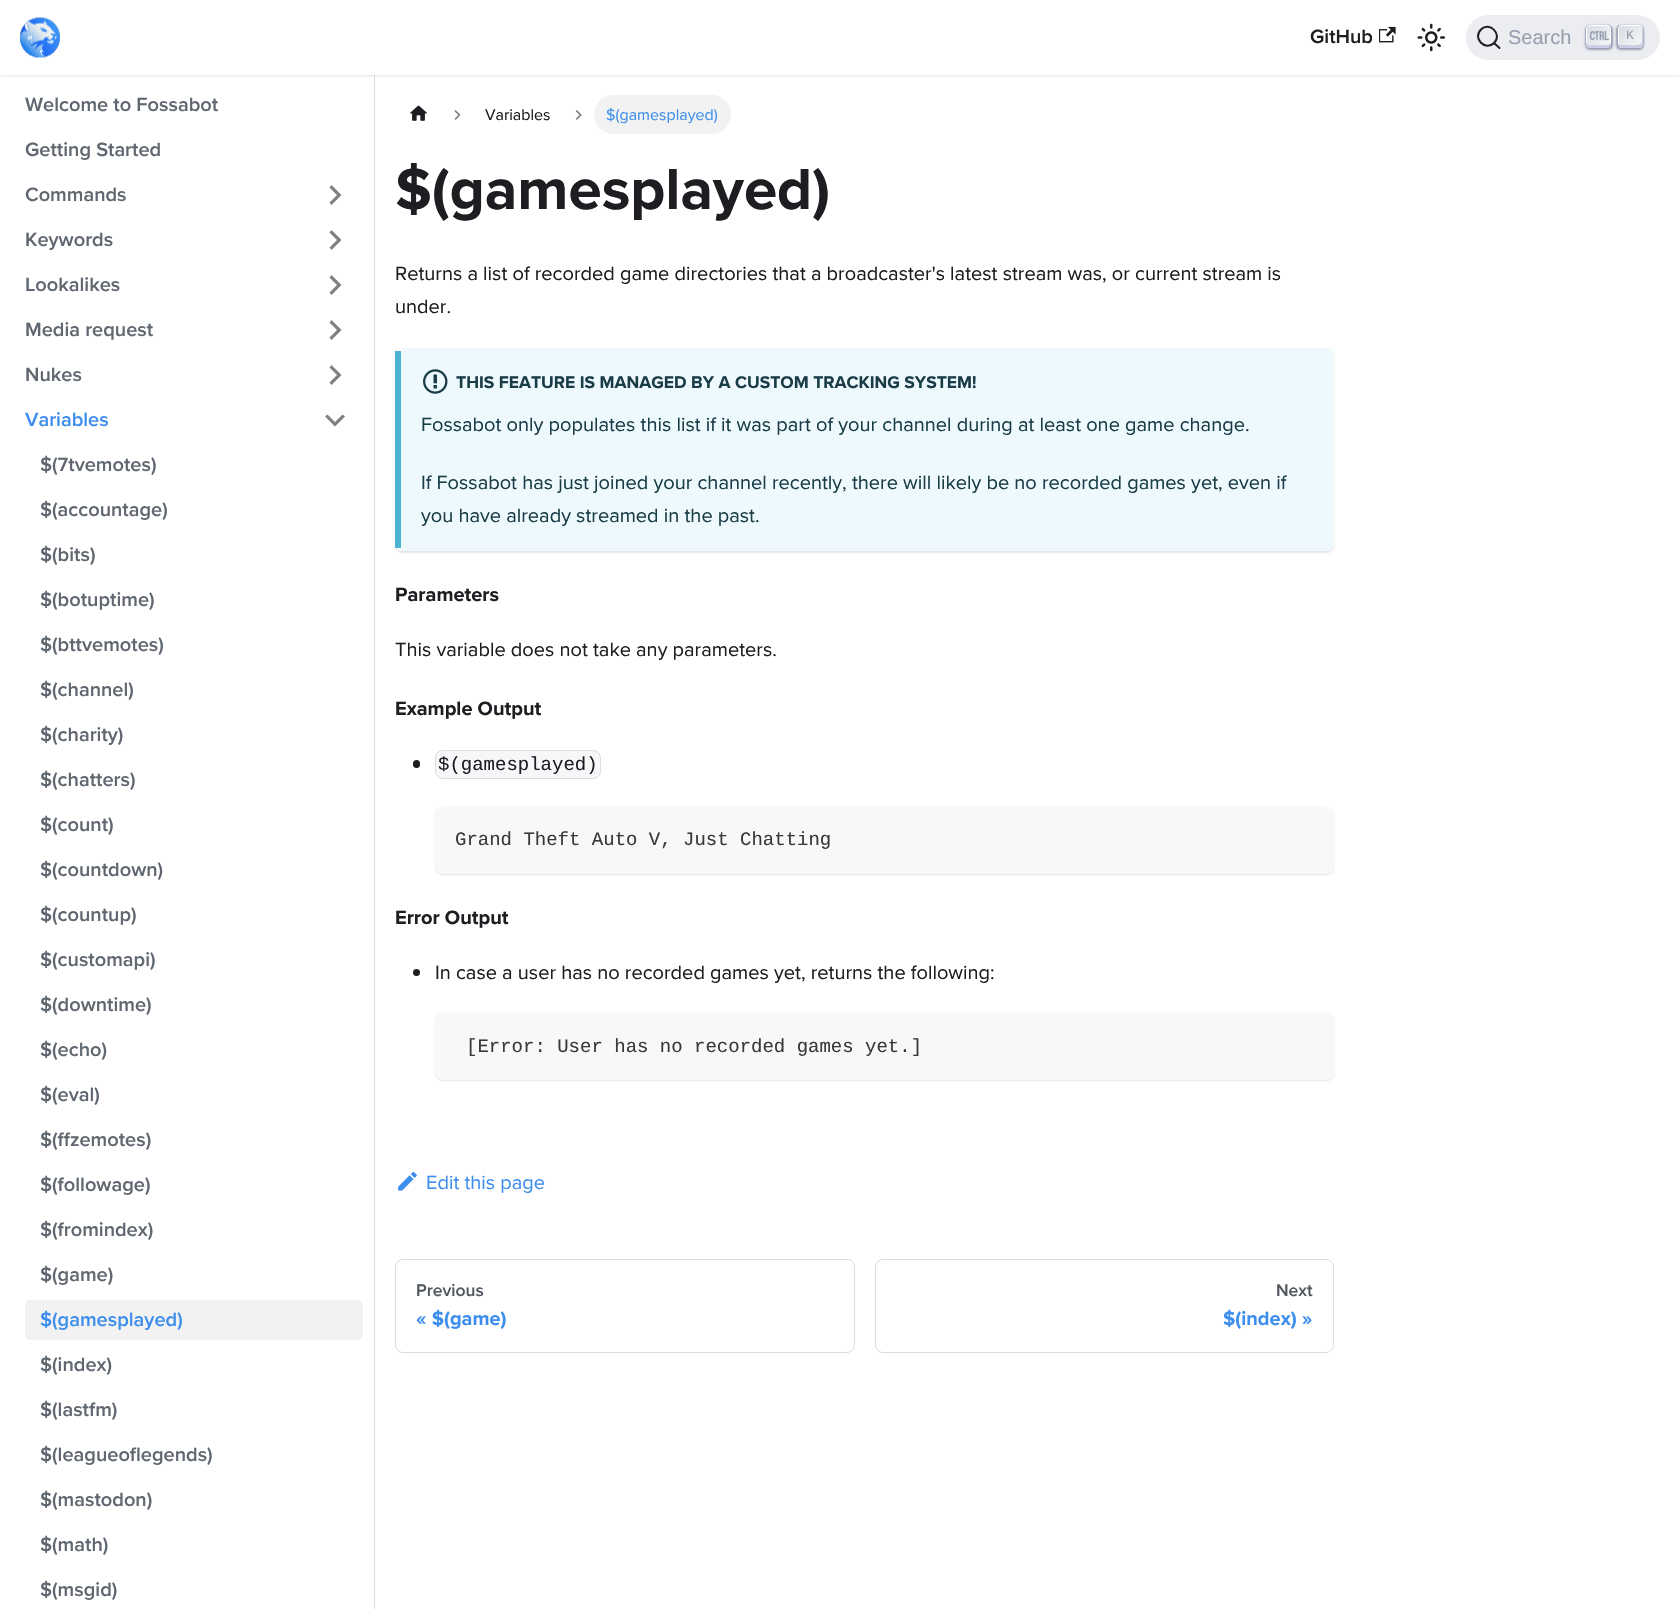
#include "include/core/SkBlurTypes.h"
#include "include/core/SkCanvas.h"
#include "include/core/SkData.h"
#include "include/core/SkFont.h"
#include "include/core/SkFontMgr.h"
#include "include/core/SkImage.h"
#include "include/core/SkMaskFilter.h"
#include "include/core/SkPaint.h"
#include "include/core/SkPathBuilder.h"
#include "include/core/SkTextBlob.h"
#include "include/effects/SkDashPathEffect.h"
#include "include/effects/SkGradientShader.h"
#include "include/utils/SkParsePath.h"

extern sk_sp<SkFontMgr> fontMgr;

void draw(SkCanvas* canvas) {
    SkPaint p;
    p.setAntiAlias(true);
    auto font = [&](const char* family, int weight, float size, bool italic = false) {
        SkFontStyle style(weight, SkFontStyle::kNormal_Width,
            italic ? SkFontStyle::kItalic_Slant : SkFontStyle::kUpright_Slant);
        SkFont result(fontMgr->matchFamilyStyle(family, style), size);
        result.setSubpixel(true);
        return result;
    };
    auto drawPhoto = [&](const char* path, float l, float t, float r, float b) {
        auto image = SkImages::DeferredFromEncodedData(SkData::MakeFromFileName(path));
        canvas->drawImageRect(image, SkRect::MakeLTRB(l, t, r, b), SkSamplingOptions());
    };
    canvas->clear(0xFFFFFFFF);
    p.setColor(0xFFDADDE1);
    canvas->drawRect(SkRect::MakeLTRB(374, 75, 375, 1609), p);
    p.setColor(0x1A000000);
    p.setMaskFilter(SkMaskFilter::MakeBlur(kNormal_SkBlurStyle, 1));
    canvas->drawRect(SkRect::MakeLTRB(0, 1, 1680, 76), p);
    p.setMaskFilter(nullptr);
    p.setColor(0xFFFFFFFF);
    canvas->drawRect(SkRect::MakeLTRB(0, 0, 1680, 75), p);
    drawPhoto("media/1.png", 20, 17, 60, 58);
    auto font1 = font("Proxima Nova", 600, 20);
    p.setColor(0xFF1C1E21);
    canvas->drawString("GitHub", 1310, 43, font1, p);
    drawPhoto("media/2.png", 1379, 26, 1396, 43);
    drawPhoto("media/3.png", 1417, 23, 1445, 52);
    p.setColor(0xFFEBEDF0);
    canvas->drawRoundRect(SkRect::MakeLTRB(1466, 15, 1660, 60), 22.5f, 22.5f, p);
    p.setStyle(SkPaint::kStroke_Style);
    p.setStrokeWidth(2);
    p.setStrokeCap(SkPaint::kRound_Cap);
    p.setStrokeJoin(SkPaint::kRound_Join);
    p.setColor(0xFF1C1E21);
    canvas->drawPath(SkPathBuilder().moveTo(1494, 43).lineTo(1499.5f, 48).lineTo(1494, 43).cubicTo(1485.5f, 51.5f, 1472, 38.5f, 1481, 29.5f).cubicTo(1489.5f, 21, 1503, 34.5f, 1494, 43).close().detach(), p);
    auto font2 = font("Liberation Sans", 400, 20);
    p.setStyle(SkPaint::kFill_Style);
    p.setColor(0xFF969FAF);
    canvas->drawString("Search", 1508, 44, font2, p);
    p.setColor(0x661E235A);
    p.setMaskFilter(SkMaskFilter::MakeBlur(kNormal_SkBlurStyle, 1));
    canvas->drawRoundRect(SkRect::MakeLTRB(1585, 25, 1613, 50), 5, 5, p);
    p.setMaskFilter(nullptr);
    {
        const SkColor colors[] = {0xFFD5DBE4, 0xFFF8F8F8};
        const float stops[] = {0, 1};
        const SkPoint ends[] = {{1587, 24}, {1611, 48}};
        p.setShader(SkGradientShader::MakeLinear(ends, colors, stops, 2, SkTileMode::kClamp));
        p.setAlpha(255);
    }
    canvas->drawRoundRect(SkRect::MakeLTRB(1586.5f, 25.5f, 1610.5f, 47.5f), 3.5f, 3.5f, p);
    p.setStyle(SkPaint::kStroke_Style);
    p.setStrokeWidth(1);
    p.setStrokeCap(SkPaint::kButt_Cap);
    p.setStrokeJoin(SkPaint::kMiter_Join);
    p.setShader(nullptr);
    p.setColor(0xFFFFFFFF);
    canvas->drawRoundRect(SkRect::MakeLTRB(1586.5f, 25.5f, 1610.5f, 47.5f), 3.5f, 3.5f, p);
    p.setStyle(SkPaint::kFill_Style);
    p.setColor(0xFFCDCDE6);
    canvas->drawPath(SkPathBuilder().moveTo(1611, 42).cubicTo(1610.5f, 44, 1609, 45, 1605, 45).lineTo(1590, 45).cubicTo(1587, 45, 1586, 42.5f, 1586, 39.5f).lineTo(1586, 44).cubicTo(1586, 46, 1588, 48, 1590, 48).lineTo(1607, 48).cubicTo(1609, 48, 1611, 46, 1611, 44).close().detach(), p);
    drawPhoto("media/4.png", 1590, 31, 1609, 41);
    p.setColor(0x661E235A);
    p.setMaskFilter(SkMaskFilter::MakeBlur(kNormal_SkBlurStyle, 1));
    canvas->drawRoundRect(SkRect::MakeLTRB(1616, 25, 1644, 50), 5, 5, p);
    p.setMaskFilter(nullptr);
    {
        const SkColor colors[] = {0xFFD5DBE4, 0xFFF8F8F8};
        const float stops[] = {0, 1};
        const SkPoint ends[] = {{1618, 24}, {1642, 48}};
        p.setShader(SkGradientShader::MakeLinear(ends, colors, stops, 2, SkTileMode::kClamp));
        p.setAlpha(255);
    }
    canvas->drawRoundRect(SkRect::MakeLTRB(1618.5f, 25.5f, 1642.5f, 47.5f), 3.5f, 3.5f, p);
    p.setStyle(SkPaint::kStroke_Style);
    p.setShader(nullptr);
    p.setColor(0xFFFFFFFF);
    canvas->drawRoundRect(SkRect::MakeLTRB(1618.5f, 25.5f, 1642.5f, 47.5f), 3.5f, 3.5f, p);
    p.setStyle(SkPaint::kFill_Style);
    p.setColor(0xFFCDCDE6);
    canvas->drawPath(SkPathBuilder().moveTo(1642, 26.5f).lineTo(1642, 34).lineTo(1642, 40.5f).lineTo(1641.5f, 43).cubicTo(1640, 46, 1631.5f, 45, 1628.5f, 45).lineTo(1623.5f, 45).cubicTo(1621, 45, 1619, 45.5f, 1618, 43).cubicTo(1618, 48, 1620.5f, 48, 1625, 48).lineTo(1630.5f, 48).cubicTo(1643.5f, 48, 1643, 49.5f, 1643, 36.5f).cubicTo(1643, 34, 1644, 28.5f, 1642, 26.5f).close().detach(), p);
    auto font3 = font("Liberation Mono", 400, 13);
    p.setColor(0xFF969FAF);
    canvas->drawString("K", 1626, 39, font3, p);
    p.setColor(0xFF606770);
    {
        const struct { const char* s; float x, y; } items[] = {
            {"Welcome to Fossabot", 25, 111},
            {"Getting Started", 25, 156},
            {"Commands", 25, 201},
        };
        for (auto [s, x, y] : items) {
            canvas->drawString(s, x, y, font1, p);
        }
    }
    p.setColor(0xFF808080);
    canvas->drawPath(SkPathBuilder().moveTo(329.5f, 187.5f).lineTo(337, 195).lineTo(329.5f, 202.5f).lineTo(331.5f, 205).lineTo(341.5f, 195).lineTo(331.5f, 185).close().detach(), p);
    p.setColor(0xFF606770);
    canvas->drawString("Keywords", 25, 246, font1, p);
    p.setColor(0xFF808080);
    canvas->drawPath(SkPathBuilder().moveTo(329.5f, 232.5f).lineTo(337, 240).lineTo(329.5f, 247.5f).lineTo(331.5f, 250).lineTo(341.5f, 240).lineTo(331.5f, 230).close().detach(), p);
    p.setColor(0xFF606770);
    canvas->drawString("Lookalikes", 25, 291, font1, p);
    p.setColor(0xFF808080);
    canvas->drawPath(SkPathBuilder().moveTo(329.5f, 277.5f).lineTo(337, 285).lineTo(329.5f, 292.5f).lineTo(331.5f, 295).lineTo(341.5f, 285).lineTo(331.5f, 275).close().detach(), p);
    p.setColor(0xFF606770);
    canvas->drawString("Media request", 25, 336, font1, p);
    p.setColor(0xFF808080);
    canvas->drawPath(SkPathBuilder().moveTo(329.5f, 322.5f).lineTo(337, 330).lineTo(329.5f, 337.5f).lineTo(331.5f, 340).lineTo(341.5f, 330).lineTo(331.5f, 320).close().detach(), p);
    p.setColor(0xFF606770);
    canvas->drawString("Nukes", 25, 381, font1, p);
    p.setColor(0xFF808080);
    canvas->drawPath(SkPathBuilder().moveTo(329.5f, 367.5f).lineTo(337, 375).lineTo(329.5f, 382.5f).lineTo(331.5f, 385).lineTo(341.5f, 375).lineTo(331.5f, 365).close().detach(), p);
    p.setColor(0xFF3E8EED);
    canvas->drawString("Variables", 25, 426, font1, p);
    p.setColor(0xFF808080);
    canvas->drawPath(SkPathBuilder().moveTo(342.5f, 414.5f).lineTo(335, 422).lineTo(327.5f, 414.5f).lineTo(325, 416.5f).lineTo(335, 426.5f).lineTo(345, 416.5f).close().detach(), p);
    p.setColor(0xFF606770);
    {
        const struct { const char* s; float x, y; } items[] = {
            {"$(7tvemotes)", 40, 471},
            {"$(accountage)", 40, 516},
            {"$(bits)", 40, 561},
            {"$(botuptime)", 40, 606},
            {"$(bttvemotes)", 40, 651},
            {"$(channel)", 40, 696},
            {"$(charity)", 40, 741},
            {"$(chatters)", 40, 786},
            {"$(count)", 40, 831},
            {"$(countdown)", 40, 876},
            {"$(countup)", 40, 921},
            {"$(customapi)", 40, 966},
            {"$(downtime)", 40, 1011},
            {"$(echo)", 40, 1056},
            {"$(eval)", 40, 1101},
            {"$(ffzemotes)", 40, 1146},
            {"$(followage)", 40, 1191},
            {"$(fromindex)", 40, 1236},
            {"$(game)", 40, 1281},
        };
        for (auto [s, x, y] : items) {
            canvas->drawString(s, x, y, font1, p);
        }
    }
    p.setColor(0xFFF2F2F2);
    canvas->drawRoundRect(SkRect::MakeLTRB(25, 1300, 363, 1340), 5, 5, p);
    p.setColor(0xFF3E8EED);
    canvas->drawString("$(gamesplayed)", 40, 1326, font1, p);
    p.setColor(0xFF606770);
    {
        const struct { const char* s; float x, y; } items[] = {
            {"$(index)", 40, 1371},
            {"$(lastfm)", 40, 1416},
            {"$(leagueoflegends)", 40, 1461},
            {"$(mastodon)", 40, 1506},
            {"$(math)", 40, 1551},
            {"$(msgid)", 40, 1596},
        };
        for (auto [s, x, y] : items) {
            canvas->drawString(s, x, y, font1, p);
        }
    }
    drawPhoto("media/5.png", 410, 105, 427, 121);
    drawPhoto("media/6.png", 454, 110, 461, 120);
    auto font4 = font("Proxima Nova", 400, 16);
    p.setColor(0xFF1C1E21);
    canvas->drawString("Variables", 485, 120, font4, p);
    drawPhoto("media/7.png", 575, 110, 582, 120);
    p.setColor(0xFFF2F2F2);
    canvas->drawRoundRect(SkRect::MakeLTRB(594, 95, 731, 134), 19.5f, 19.5f, p);
    p.setColor(0xFF3E8EED);
    canvas->drawString("$(gamesplayed)", 606, 120, font4, p);
    auto font5 = font("Proxima Nova", 700, 60);
    p.setColor(0xFF1C1E21);
    canvas->drawString("$(gamesplayed)", 395, 209, font5, p);
    auto font6 = font("Proxima Nova", 400, 20);
    canvas->drawString("Returns a list of recorded game directories that a broadcaster's latest stream was, or current stream is", 395, 280, font6, p);
    canvas->drawString("under.", 395, 313, font6, p);
    canvas->save();
    canvas->clipPath(SkPathBuilder(SkPathFillType::kEvenOdd).moveTo(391, 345).lineTo(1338, 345).lineTo(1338, 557).lineTo(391, 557).close().moveTo(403, 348).lineTo(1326, 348).cubicTo(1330.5f, 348, 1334, 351.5f, 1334, 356).lineTo(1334, 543).cubicTo(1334, 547.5f, 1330.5f, 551, 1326, 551).lineTo(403, 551).cubicTo(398.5f, 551, 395, 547.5f, 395, 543).lineTo(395, 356).cubicTo(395, 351.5f, 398.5f, 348, 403, 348).close().detach(), true);
    p.setColor(0x1A000000);
    p.setMaskFilter(SkMaskFilter::MakeBlur(kNormal_SkBlurStyle, 1));
    canvas->drawRoundRect(SkRect::MakeLTRB(395, 349, 1334, 553), 8, 8, p);
    p.setMaskFilter(nullptr);
    canvas->restore();
    p.setColor(0xFFEEF9FD);
    canvas->drawPath(SkPathBuilder().moveTo(403, 348).lineTo(1326, 348).cubicTo(1330, 348, 1334, 351, 1334, 356).lineTo(1334, 543).cubicTo(1334, 548, 1330, 551, 1326, 551).lineTo(403, 551).cubicTo(402, 551, 401, 548, 401, 543).lineTo(401, 356).cubicTo(401, 351, 402, 348, 403, 348).close().detach(), p);
    p.setColor(0xFF4CB3D4);
    canvas->drawRect(SkRect::MakeLTRB(395, 351, 401, 548), p);
    drawPhoto("media/8.png", 423, 369, 448, 394);
    auto font7 = font("Proxima Nova", 700, 17.5f);
    p.setColor(0xFF193C47);
    canvas->drawString("THIS FEATURE IS MANAGED BY A CUSTOM TRACKING SYSTEM!", 456, 388, font7, p);
    {
        const struct { const char* s; float x, y; } items[] = {
            {"Fossabot only populates this list if it was part of your channel during at least one game change.", 421, 431},
            {"If Fossabot has just joined your channel recently, there will likely be no recorded games yet, even if", 421, 489},
            {"you have already streamed in the past.", 421, 522},
        };
        for (auto [s, x, y] : items) {
            canvas->drawString(s, x, y, font6, p);
        }
    }
    auto font8 = font("Proxima Nova", 700, 20);
    p.setColor(0xFF1C1E21);
    canvas->drawString("Parameters", 395, 601, font8, p);
    canvas->drawString("This variable does not take any parameters.", 395, 656, font6, p);
    canvas->drawString("Example Output", 395, 715, font8, p);
    canvas->drawRoundRect(SkRect::MakeLTRB(413, 760, 420, 768), 3.5f, 3.5f, p);
    p.setColor(0xFFF6F7F8);
    canvas->drawRoundRect(SkRect::MakeLTRB(435, 750, 601, 779), 8, 8, p);
    p.setStyle(SkPaint::kStroke_Style);
    p.setColor(0x1A000000);
    canvas->drawRoundRect(SkRect::MakeLTRB(435.5f, 750.5f, 600.5f, 778.5f), 7.5f, 7.5f, p);
    auto font9 = font("Liberation Mono", 400, 19);
    p.setStyle(SkPaint::kFill_Style);
    p.setColor(0xFF1C1E21);
    canvas->drawString("$(gamesplayed)", 438, 770, font9, p);
    p.setColor(0x1A000000);
    p.setMaskFilter(SkMaskFilter::MakeBlur(kNormal_SkBlurStyle, 1));
    canvas->drawRoundRect(SkRect::MakeLTRB(435, 808, 1334, 875), 8, 8, p);
    p.setMaskFilter(nullptr);
    p.setColor(0xFFF6F8FA);
    canvas->drawRoundRect(SkRect::MakeLTRB(435, 806, 1334, 874), 8, 8, p);
    p.setColor(0xFF393A34);
    canvas->drawString("Grand Theft Auto V, Just Chatting", 455, 845, font9, p);
    p.setColor(0xFF1C1E21);
    canvas->drawString("Error Output", 395, 924, font8, p);
    canvas->drawCircle(416.5f, 972.5f, 3.5f, p);
    canvas->drawString("In case a user has no recorded games yet, returns the following:", 435, 979, font6, p);
    p.setColor(0x1A000000);
    p.setMaskFilter(SkMaskFilter::MakeBlur(kNormal_SkBlurStyle, 1));
    canvas->drawRoundRect(SkRect::MakeLTRB(435, 1014, 1334, 1081), 8, 8, p);
    p.setMaskFilter(nullptr);
    p.setColor(0xFFF6F8FA);
    canvas->drawRoundRect(SkRect::MakeLTRB(435, 1013, 1334, 1080), 8, 8, p);
    p.setColor(0xFF393A34);
    canvas->drawString("[Error: User has no recorded games yet.]", 466, 1052, font9, p);
    drawPhoto("media/9.png", 398, 1171, 417, 1191);
    p.setColor(0xFF3E8EED);
    canvas->drawString("Edit this page", 426, 1189, font6, p);
    p.setStyle(SkPaint::kStroke_Style);
    p.setColor(0xFFDADDE1);
    canvas->drawRoundRect(SkRect::MakeLTRB(395.5f, 1259.5f, 854.5f, 1352.5f), 7.5f, 7.5f, p);
    auto font10 = font("Proxima Nova", 600, 17.5f);
    p.setStyle(SkPaint::kFill_Style);
    p.setColor(0xFF525860);
    canvas->drawString("Previous", 416, 1296, font10, p);
    p.setColor(0xFF3E8EED);
    canvas->drawString("« $(game)", 416, 1325, font8, p);
    p.setStyle(SkPaint::kStroke_Style);
    p.setColor(0xFFDADDE1);
    canvas->drawRoundRect(SkRect::MakeLTRB(875.5f, 1259.5f, 1333.5f, 1352.5f), 7.5f, 7.5f, p);
    p.setStyle(SkPaint::kFill_Style);
    p.setColor(0xFF525860);
    canvas->drawString("Next", 1276, 1296, font10, p);
    p.setColor(0xFF3E8EED);
    canvas->drawString("$(index) »", 1223, 1325, font8, p);
}
